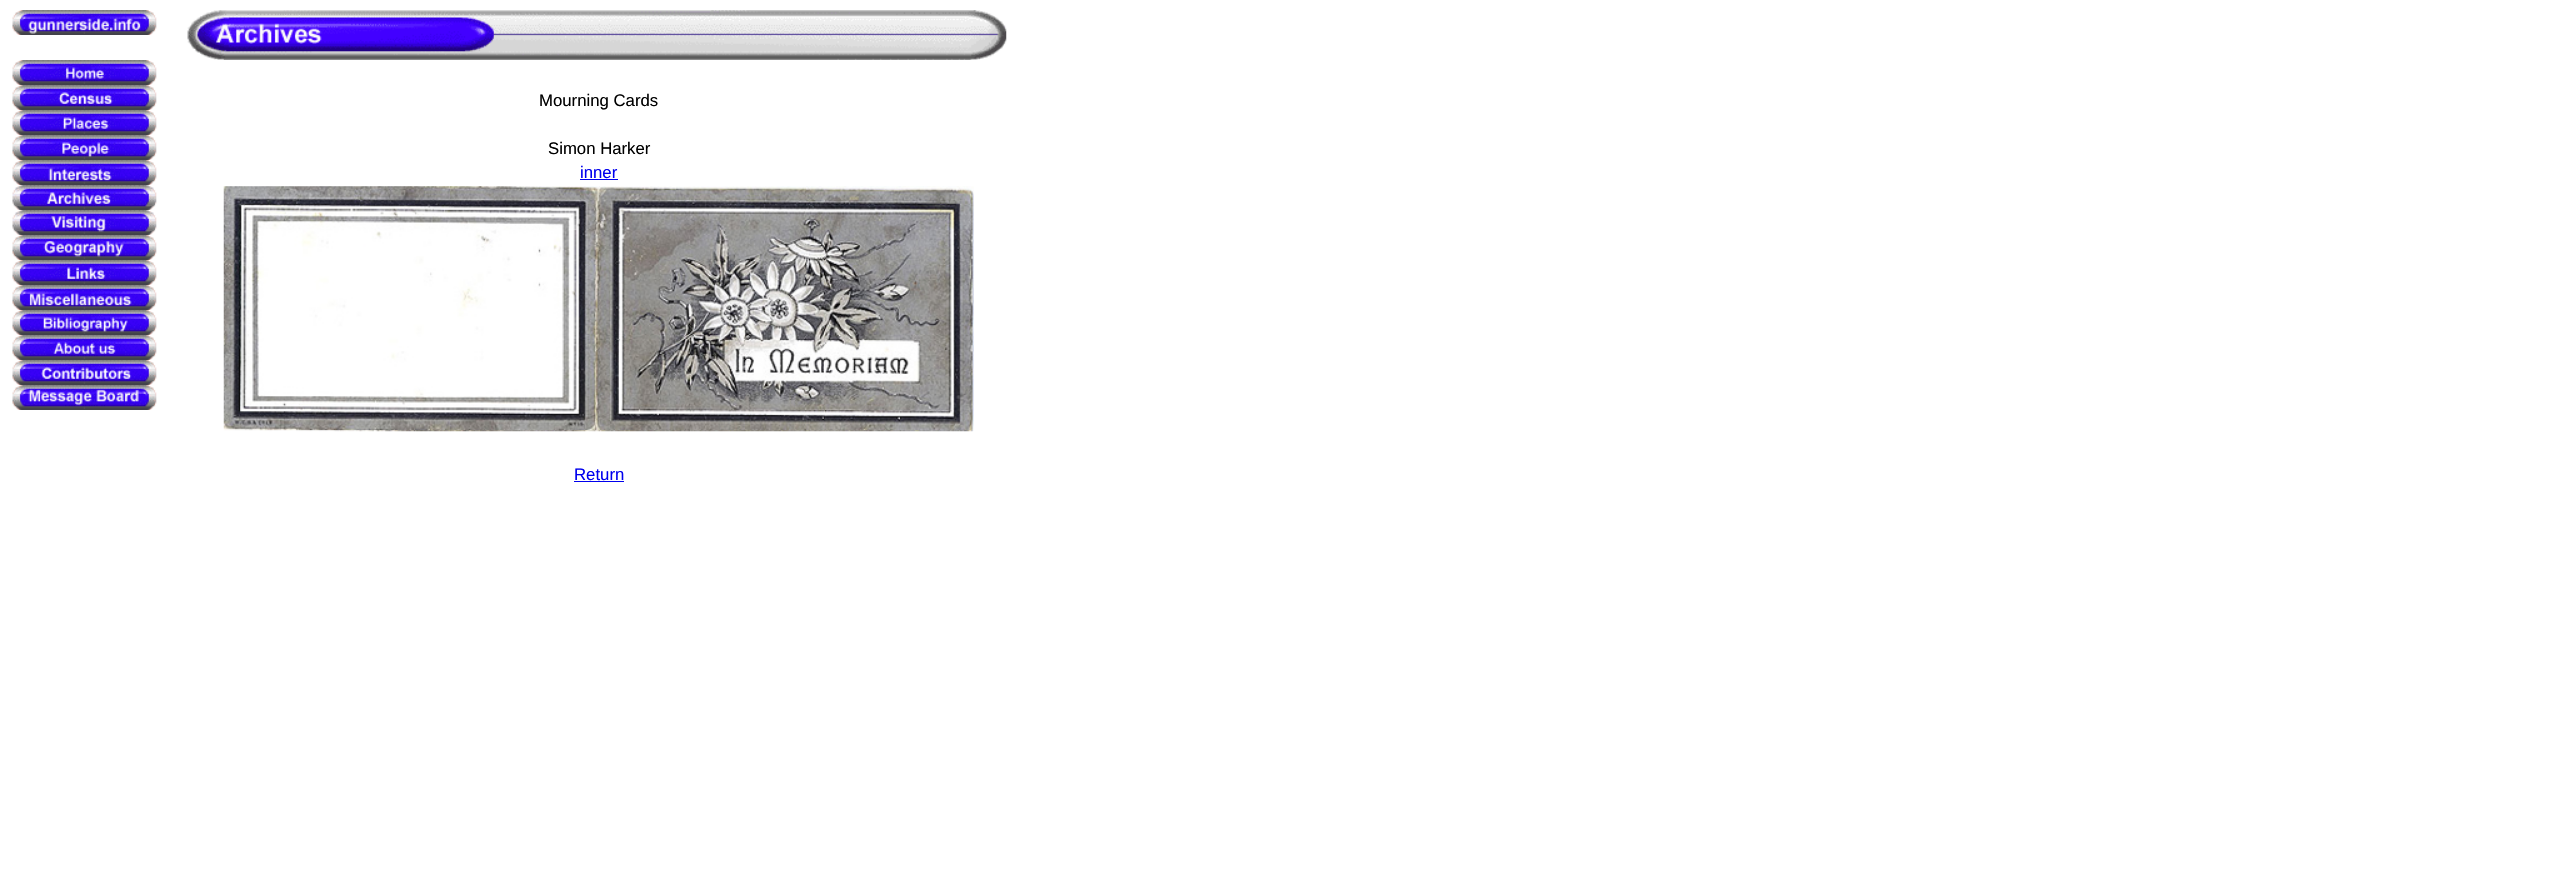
#include "include/core/SkBlurTypes.h"
#include "include/core/SkCanvas.h"
#include "include/core/SkData.h"
#include "include/core/SkFont.h"
#include "include/core/SkFontMgr.h"
#include "include/core/SkImage.h"
#include "include/core/SkMaskFilter.h"
#include "include/core/SkPaint.h"
#include "include/core/SkPathBuilder.h"
#include "include/core/SkTextBlob.h"
#include "include/effects/SkDashPathEffect.h"
#include "include/effects/SkGradientShader.h"
#include "include/utils/SkParsePath.h"

extern sk_sp<SkFontMgr> fontMgr;

void draw(SkCanvas* canvas) {
    SkPaint p;
    p.setAntiAlias(true);
    auto font = [&](const char* family, int weight, float size, bool italic = false) {
        SkFontStyle style(weight, SkFontStyle::kNormal_Width,
            italic ? SkFontStyle::kItalic_Slant : SkFontStyle::kUpright_Slant);
        SkFont result(fontMgr->matchFamilyStyle(family, style), size);
        result.setSubpixel(true);
        return result;
    };
    auto drawPhoto = [&](const char* path, float l, float t, float r, float b) {
        auto image = SkImages::DeferredFromEncodedData(SkData::MakeFromFileName(path));
        canvas->drawImageRect(image, SkRect::MakeLTRB(l, t, r, b), SkSamplingOptions());
    };
    canvas->clear(0xFFFFFFFF);
    drawPhoto("media/1.png", 12, 10, 157, 35);
    drawPhoto("media/2.png", 187, 10, 1007, 60);
    drawPhoto("media/3.png", 12, 60, 157, 85);
    drawPhoto("media/4.png", 12, 85, 157, 110);
    drawPhoto("media/5.png", 12, 110, 157, 135);
    drawPhoto("media/6.png", 12, 135, 157, 160);
    drawPhoto("media/7.png", 12, 160, 157, 185);
    drawPhoto("media/8.png", 12, 185, 157, 210);
    drawPhoto("media/9.png", 12, 210, 157, 235);
    drawPhoto("media/10.png", 12, 235, 157, 260);
    drawPhoto("media/11.png", 12, 260, 157, 285);
    drawPhoto("media/12.png", 12, 285, 157, 310);
    drawPhoto("media/13.png", 12, 310, 157, 335);
    drawPhoto("media/14.png", 12, 335, 157, 360);
    drawPhoto("media/15.png", 12, 360, 157, 385);
    drawPhoto("media/16.png", 12, 385, 157, 410);
    auto font1 = font("Liberation Sans", 400, 16.75f);
    p.setColor(0xFF000000);
    canvas->drawString("Mourning Cards", 539, 106, font1, p);
    canvas->drawString("Simon Harker", 548, 154, font1, p);
    p.setColor(0xFF0000EE);
    canvas->drawString("inner", 580, 178, font1, p);
    canvas->drawRect(SkRect::MakeLTRB(580, 179, 618, 180), p);
    drawPhoto("media/17.png", 223, 186, 974, 432);
    canvas->drawString("Return", 574, 480, font1, p);
    canvas->drawRect(SkRect::MakeLTRB(574, 481, 624, 482), p);
}
